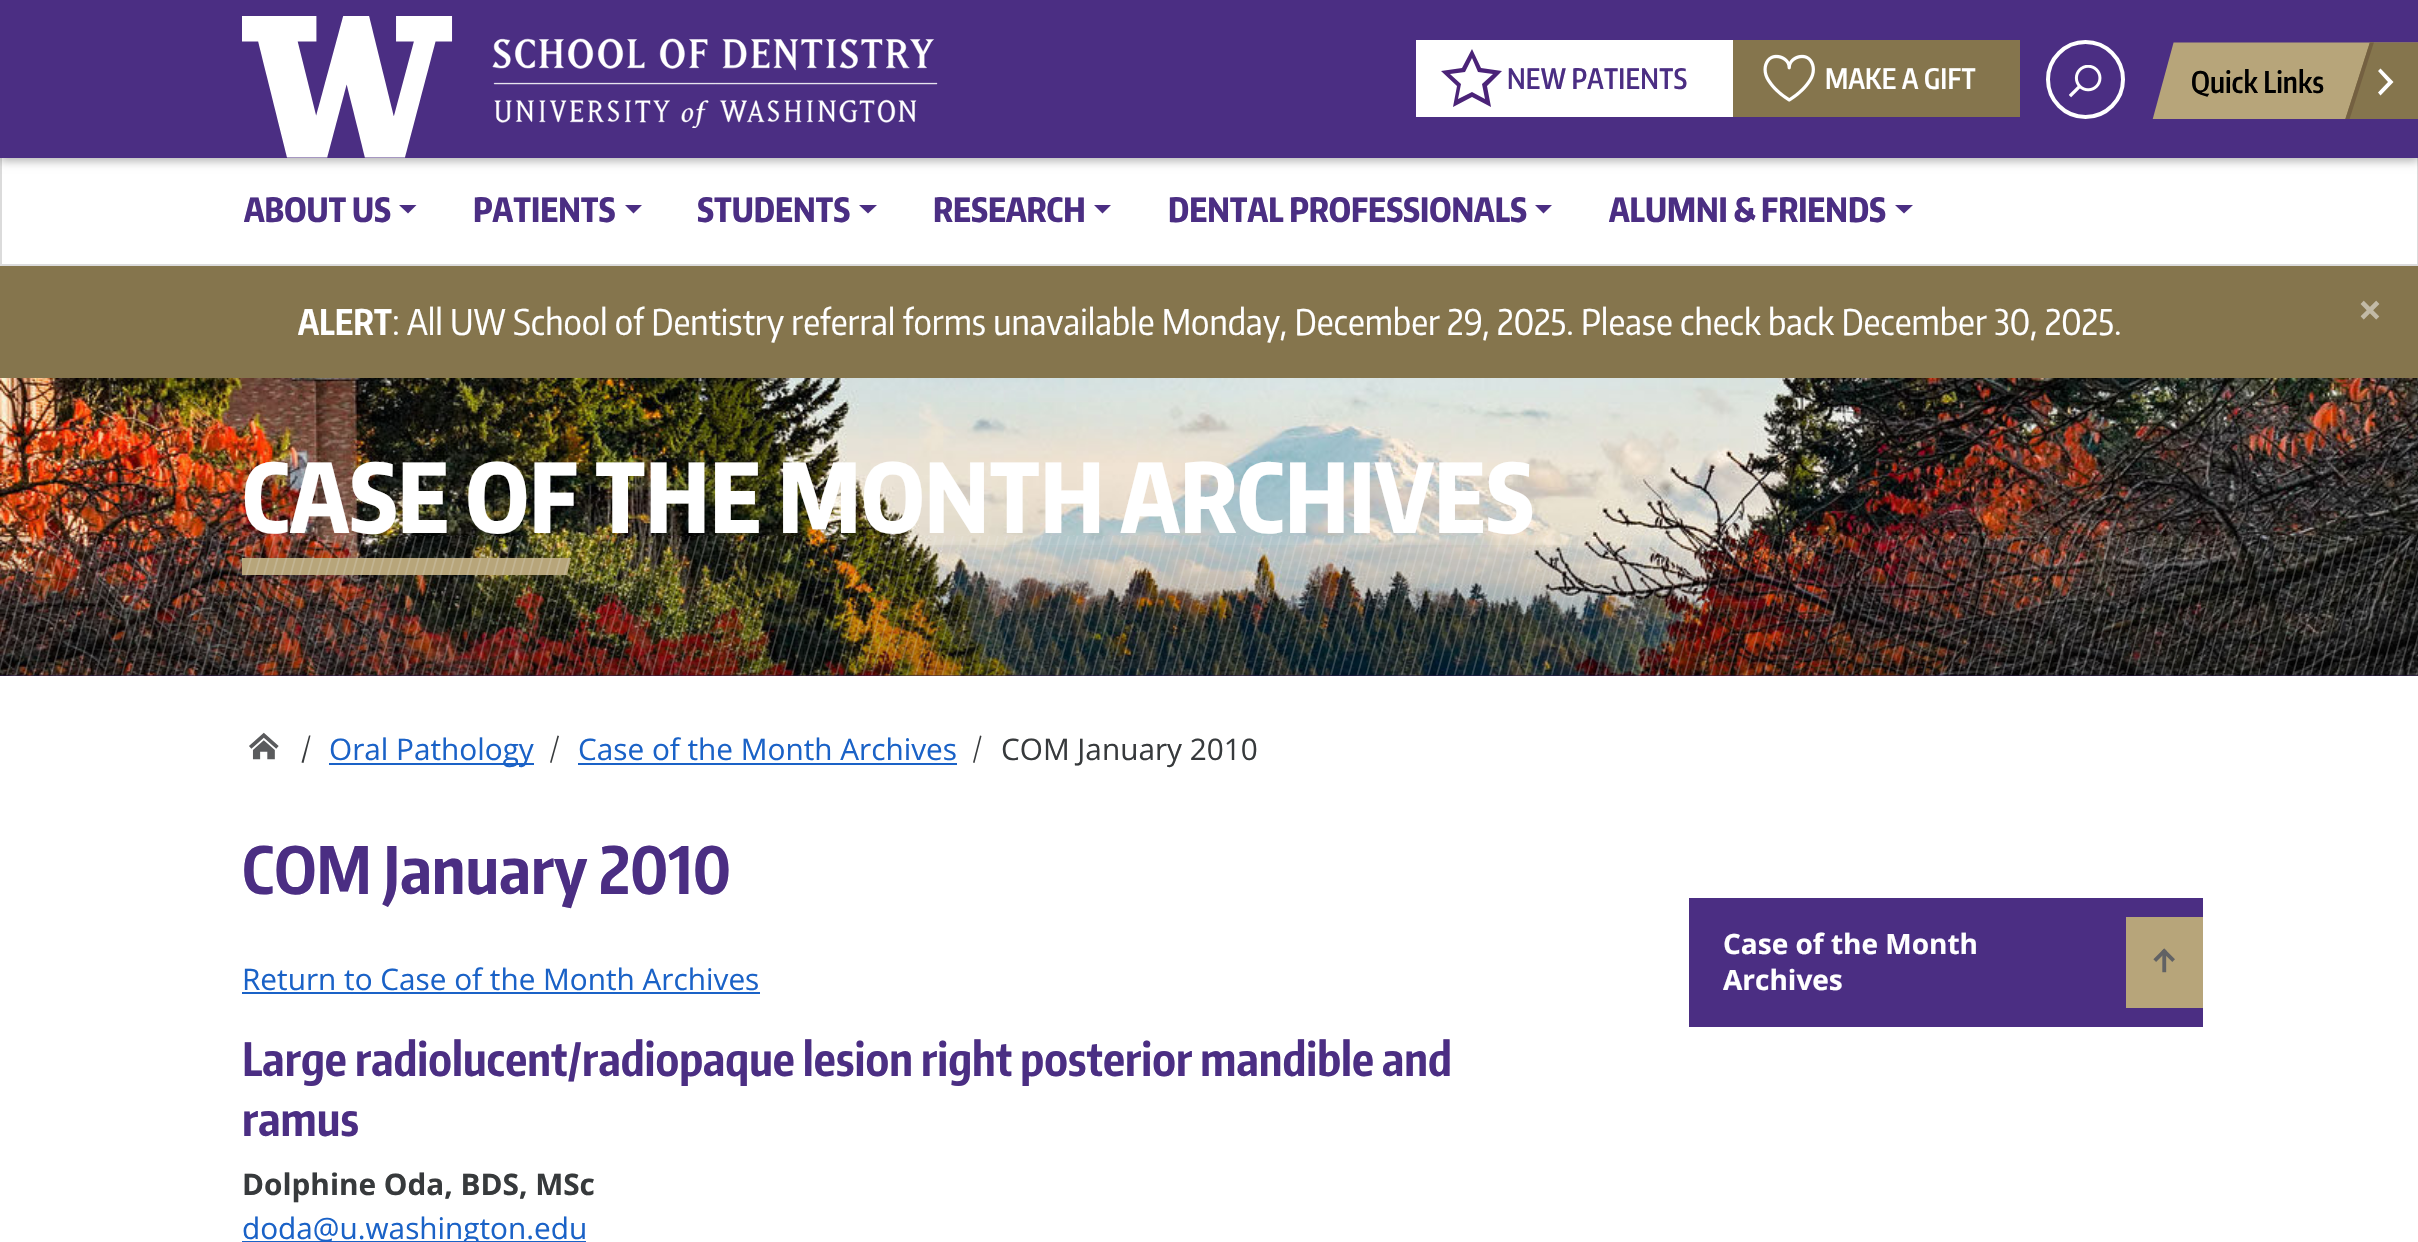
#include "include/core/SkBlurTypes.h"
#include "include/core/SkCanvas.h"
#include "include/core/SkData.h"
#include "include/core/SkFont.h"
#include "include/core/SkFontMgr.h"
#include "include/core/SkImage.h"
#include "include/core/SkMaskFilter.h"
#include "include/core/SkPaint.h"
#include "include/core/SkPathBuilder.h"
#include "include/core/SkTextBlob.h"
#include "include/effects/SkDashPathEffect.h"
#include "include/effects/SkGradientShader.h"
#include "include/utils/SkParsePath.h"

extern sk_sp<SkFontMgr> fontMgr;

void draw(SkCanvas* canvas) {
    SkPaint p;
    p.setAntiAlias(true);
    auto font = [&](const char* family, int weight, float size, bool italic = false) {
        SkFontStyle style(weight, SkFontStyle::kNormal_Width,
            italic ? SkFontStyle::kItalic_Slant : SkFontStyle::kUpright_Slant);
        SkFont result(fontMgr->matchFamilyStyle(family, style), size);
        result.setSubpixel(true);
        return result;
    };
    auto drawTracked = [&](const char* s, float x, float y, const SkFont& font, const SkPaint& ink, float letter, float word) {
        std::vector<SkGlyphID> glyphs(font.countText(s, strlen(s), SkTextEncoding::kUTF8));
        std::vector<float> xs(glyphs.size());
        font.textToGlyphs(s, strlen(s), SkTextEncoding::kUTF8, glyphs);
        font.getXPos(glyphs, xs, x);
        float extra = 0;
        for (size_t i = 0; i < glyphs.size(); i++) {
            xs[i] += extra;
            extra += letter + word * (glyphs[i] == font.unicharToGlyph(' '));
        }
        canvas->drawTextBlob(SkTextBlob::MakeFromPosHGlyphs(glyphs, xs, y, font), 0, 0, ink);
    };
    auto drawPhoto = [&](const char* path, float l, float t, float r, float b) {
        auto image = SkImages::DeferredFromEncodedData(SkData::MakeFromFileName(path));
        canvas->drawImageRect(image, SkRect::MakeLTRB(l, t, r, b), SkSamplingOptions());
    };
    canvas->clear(0xFFFFFFFF);
    p.setColor(0xFFDBDBDB);
    canvas->drawPath(SkPathBuilder().moveTo(2418, 158).lineTo(2418, 266).lineTo(2417, 264).lineTo(2417, 158).close().detach(), p);
    p.setColor(0x24000000);
    canvas->drawPath(SkPathBuilder().moveTo(2418, 266).lineTo(0, 266).lineTo(2, 264).lineTo(2417, 264).close().detach(), p);
    canvas->drawPath(SkPathBuilder().moveTo(0, 266).lineTo(0, 158).lineTo(2, 158).lineTo(2, 264).close().detach(), p);
    p.setColor(0x4D000000);
    p.setMaskFilter(SkMaskFilter::MakeBlur(kNormal_SkBlurStyle, 4.5f));
    canvas->drawRect(SkRect::MakeLTRB(0, 4, 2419, 161), p);
    p.setMaskFilter(nullptr);
    p.setColor(0xFF4B2E83);
    canvas->drawRect(SkRect::MakeLTRB(0, 0, 2418, 158), p);
    drawPhoto("media/1.png", 242, 16, 453, 158);
    drawPhoto("media/2.png", 492, 38, 938, 128);
    p.setColor(0xFFFFFFFF);
    canvas->drawRect(SkRect::MakeLTRB(1416, 40, 1733, 117), p);
    p.setColor(0xFF4B2378);
    canvas->drawPath(SkPathBuilder().moveTo(1502, 71).lineTo(1481, 68).lineTo(1472, 49).lineTo(1462, 68).lineTo(1441, 71).lineTo(1457, 86).lineTo(1453, 107).lineTo(1472, 97).lineTo(1491, 107).lineTo(1487, 86).close().moveTo(1472, 92).lineTo(1458, 99).lineTo(1461, 84).lineTo(1450, 74).lineTo(1465, 72).lineTo(1472, 58).lineTo(1478, 72).lineTo(1493, 74).lineTo(1482, 84).lineTo(1485, 99).close().detach(), p);
    auto font1 = font("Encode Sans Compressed", 600, 28);
    p.setColor(0xFF4B2E83);
    drawTracked("NEW PATIENTS", 1507, 89, font1, p, 0.25f, 0);
    p.setColor(0xFF85754D);
    canvas->drawRect(SkRect::MakeLTRB(1733, 40, 2020, 117), p);
    drawPhoto("media/3.png", 1763, 54, 1815, 102);
    p.setColor(0xFFFFFFFF);
    drawTracked("MAKE A GIFT", 1825, 89, font1, p, 0.25f, 0);
    p.setStyle(SkPaint::kStroke_Style);
    p.setStrokeWidth(4);
    canvas->drawCircle(2085.5f, 79.5f, 37.5f, p);
    drawPhoto("media/4.png", 2069, 65, 2102, 98);
    drawPhoto("media/5.png", 2152, 42, 2418, 119);
    auto font2 = font("Encode Sans Compressed", 600, 29.75f);
    p.setStyle(SkPaint::kFill_Style);
    p.setColor(0xFF000000);
    canvas->drawString("Quick Links", 2191, 93, font2, p);
    p.setColor(0xFFFFFFFF);
    canvas->drawPath(SkPathBuilder().moveTo(2393.5f, 82).lineTo(2380.5f, 68.5f).lineTo(2378, 71).lineTo(2388, 82).lineTo(2378, 92.5f).lineTo(2380.5f, 95.5f).close().detach(), p);
    auto font3 = font("Encode Sans Compressed", 800, 33.25f);
    p.setColor(0xFF4B2E83);
    canvas->drawString("ABOUT US", 244, 222, font3, p);
    canvas->drawPath(SkPathBuilder().moveTo(399, 205).lineTo(416.5f, 205).lineTo(408, 213.5f).close().detach(), p);
    canvas->drawString("PATIENTS", 473, 222, font3, p);
    canvas->drawPath(SkPathBuilder().moveTo(625, 205).lineTo(642, 205).lineTo(633.5f, 213.5f).close().detach(), p);
    canvas->drawString("STUDENTS", 697, 222, font3, p);
    canvas->drawPath(SkPathBuilder().moveTo(859, 205).lineTo(877, 205).lineTo(868, 213.5f).close().detach(), p);
    canvas->drawString("RESEARCH", 933, 222, font3, p);
    canvas->drawPath(SkPathBuilder().moveTo(1094, 205).lineTo(1111, 205).lineTo(1102.5f, 213.5f).close().detach(), p);
    canvas->drawString("DENTAL PROFESSIONALS", 1168, 222, font3, p);
    canvas->drawPath(SkPathBuilder().moveTo(1535, 205).lineTo(1552, 205).lineTo(1543.5f, 213.5f).close().detach(), p);
    canvas->drawString("ALUMNI & FRIENDS", 1609, 222, font3, p);
    canvas->drawPath(SkPathBuilder().moveTo(1895, 205).lineTo(1913, 205).lineTo(1904, 213.5f).close().detach(), p);
    p.setColor(0xFF85754D);
    canvas->drawRect(SkRect::MakeLTRB(0, 266, 2418, 378), p);
    auto font4 = font("Encode Sans Compressed", 700, 35);
    p.setColor(0xFFFFFFFF);
    canvas->drawString("ALERT", 298, 335, font4, p);
    auto font5 = font("Encode Sans Condensed", 400, 35);
    canvas->drawString(": All UW School of Dentistry referral forms unavailable Monday, December 29, 2025. Please check back December 30, 2025.", 392, 335, font5, p);
    auto font6 = font("Open Sans", 700, 42);
    p.setColor(0xFFC2BAA6);
    canvas->drawString("×", 2358, 325, font6, p);
    p.setColor(0xFF4B2E83);
    canvas->drawRect(SkRect::MakeLTRB(0, 675, 2418, 676), p);
    drawPhoto("media/6.png", 0, 378, 2418, 676);
    auto font7 = font("Encode Sans Compressed", 800, 95.25f);
    p.setColor(0xFFFFFFFF);
    canvas->drawString("CASE OF THE MONTH ARCHIVES", 242, 533, font7, p);
    {
        const SkColor colors[] = {0x00000000, 0x52000000};
        const float stops[] = {0, 1};
        const SkPoint ends[] = {{0, 536}, {0, 676}};
        p.setShader(SkGradientShader::MakeLinear(ends, colors, stops, 2, SkTileMode::kClamp));
        p.setAlpha(255);
    }
    canvas->drawRect(SkRect::MakeLTRB(0, 545, 2418, 676), p);
    canvas->save();
    canvas->clipRect(SkRect::MakeLTRB(242, 558, 2177, 576));
    p.setShader(nullptr);
    p.setColor(0xFFB7A57A);
    canvas->drawPath(SkPathBuilder().moveTo(235, 558).lineTo(571, 558).lineTo(567, 575).lineTo(231, 575).close().detach(), p);
    canvas->restore();
    drawPhoto("media/7.png", 0, 535, 2418, 676);
    drawPhoto("media/8.png", 249, 732, 279, 760);
    p.setColor(0xFF373A3C);
    canvas->drawPath(SkPathBuilder().moveTo(309, 735.5f).lineTo(310.5f, 735.5f).lineTo(303.5f, 763).lineTo(301.5f, 762.5f).close().detach(), p);
    p.setColor(0xFF1A62C7);
    canvas->drawRect(SkRect::MakeLTRB(329, 763, 534, 765), p);
    auto font8 = font("Open Sans", 400, 29.75f);
    canvas->drawString("Oral Pathology", 329, 760, font8, p);
    p.setColor(0xFF373A3C);
    canvas->drawPath(SkPathBuilder().moveTo(557.5f, 735.5f).lineTo(559, 736).lineTo(551.5f, 763).lineTo(550, 762.5f).close().detach(), p);
    p.setColor(0xFF1A62C7);
    canvas->drawString("Case of the Month Archives", 578, 760, font8, p);
    canvas->drawRect(SkRect::MakeLTRB(578, 763, 957, 765), p);
    p.setColor(0xFF373A3C);
    canvas->drawPath(SkPathBuilder().moveTo(980, 735.5f).lineTo(981.5f, 736).lineTo(974.5f, 763).lineTo(973, 762.5f).close().detach(), p);
    canvas->drawString("COM January 2010", 1001, 760, font8, p);
    auto font9 = font("Encode Sans Compressed", 700, 64.75f);
    p.setColor(0xFF4B2E83);
    canvas->drawString("COM January 2010", 242, 894, font9, p);
    p.setColor(0xFF1A62C7);
    canvas->drawString("Return to Case of the Month Archives", 242, 990, font8, p);
    canvas->drawRect(SkRect::MakeLTRB(242, 992, 760, 994), p);
    auto font10 = font("Encode Sans Compressed", 700, 45.5f);
    p.setColor(0xFF4B2E83);
    canvas->drawString("Large radiolucent/radiopaque lesion right posterior mandible and", 242, 1076, font10, p);
    canvas->drawString("ramus", 242, 1136, font10, p);
    auto font11 = font("Open Sans", 700, 29.75f);
    p.setColor(0xFF373A3C);
    canvas->drawString("Dolphine Oda, BDS, MSc", 242, 1195, font11, p);
    p.setColor(0xFF1A62C7);
    canvas->drawRect(SkRect::MakeLTRB(242, 1241, 586, 1242), p);
    canvas->drawString("doda@u.washington.edu", 242, 1239, font8, p);
    p.setColor(0xFF4B2E83);
    canvas->drawRect(SkRect::MakeLTRB(1689, 898, 2203, 1027), p);
    auto font12 = font("Open Sans", 700, 28);
    p.setColor(0xFFFFFFFF);
    canvas->drawString("Case of the Month", 1723, 954, font12, p);
    p.setColor(0xFFB7A57A);
    canvas->drawRect(SkRect::MakeLTRB(2126, 917, 2203, 1008), p);
    drawPhoto("media/9.png", 2153, 948, 2175, 973);
    p.setColor(0xFFFFFFFF);
    canvas->drawString("Archives", 1723, 990, font12, p);
}
